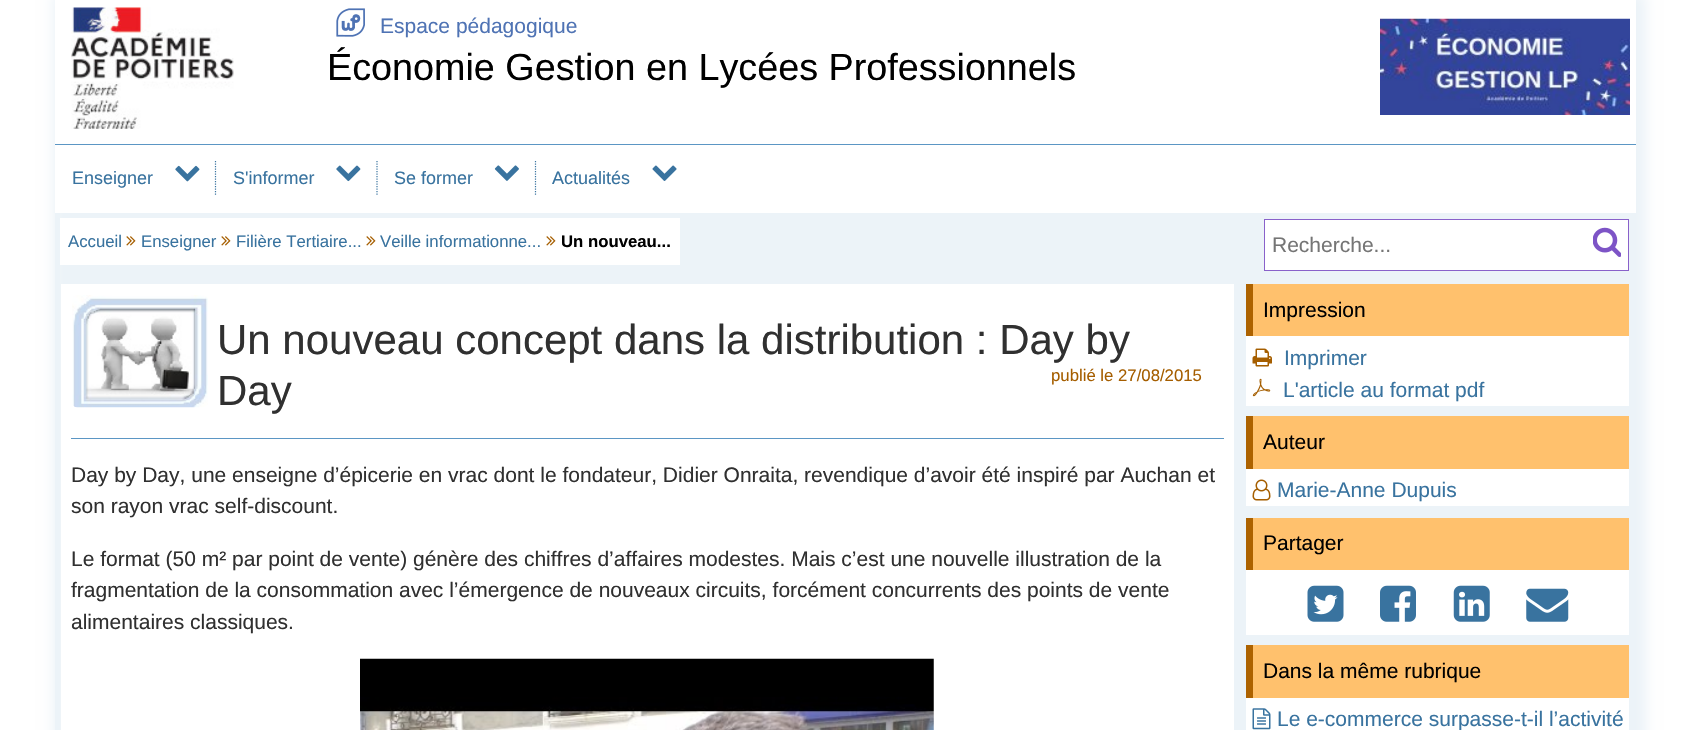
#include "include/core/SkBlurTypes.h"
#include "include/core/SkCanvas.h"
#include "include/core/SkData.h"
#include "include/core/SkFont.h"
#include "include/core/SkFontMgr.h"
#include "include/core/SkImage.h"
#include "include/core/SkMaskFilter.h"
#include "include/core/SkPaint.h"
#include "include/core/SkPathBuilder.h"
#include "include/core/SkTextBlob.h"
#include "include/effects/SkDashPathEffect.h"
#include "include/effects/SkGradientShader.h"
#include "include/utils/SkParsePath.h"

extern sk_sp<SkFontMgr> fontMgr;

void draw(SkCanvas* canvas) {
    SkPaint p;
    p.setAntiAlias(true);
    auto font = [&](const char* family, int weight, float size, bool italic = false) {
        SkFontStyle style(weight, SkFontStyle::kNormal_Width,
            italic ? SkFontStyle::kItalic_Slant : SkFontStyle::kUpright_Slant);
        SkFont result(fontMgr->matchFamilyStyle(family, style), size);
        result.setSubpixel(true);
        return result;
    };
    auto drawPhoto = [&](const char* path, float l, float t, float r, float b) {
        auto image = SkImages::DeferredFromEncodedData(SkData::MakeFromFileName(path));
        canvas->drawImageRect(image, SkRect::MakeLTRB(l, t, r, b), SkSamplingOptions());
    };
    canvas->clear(0xFFFFFFFF);
    p.setColor(0xFFECF3F8);
    p.setMaskFilter(SkMaskFilter::MakeBlur(kNormal_SkBlurStyle, 6));
    canvas->drawRect(SkRect::MakeLTRB(53, -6, 1646, 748), p);
    p.setMaskFilter(nullptr);
    canvas->drawRect(SkRect::MakeLTRB(55, 213, 60, 730), p);
    p.setColor(0xFFFFFFFF);
    canvas->drawRect(SkRect::MakeLTRB(55, 0, 1636, 144), p);
    drawPhoto("media/1.png", 71, 7, 234, 129);
    drawPhoto("media/2.png", 336, 8, 365, 37);
    auto font1 = font("Liberation Sans", 400, 21);
    p.setColor(0xFF4F73B4);
    canvas->drawString("Espace pédagogique", 380, 33, font1, p);
    auto font2 = font("Liberation Sans", 400, 37.75f);
    p.setColor(0xFF000000);
    canvas->drawString("Économie Gestion en Lycées Professionnels", 327, 80, font2, p);
    drawPhoto("media/3.png", 1380, 18, 1630, 115);
    p.setColor(0xFFFFFFFF);
    canvas->drawRect(SkRect::MakeLTRB(55, 145, 1636, 213), p);
    p.setColor(0xFF5B96C4);
    canvas->drawRect(SkRect::MakeLTRB(55, 144, 1636, 145), p);
    auto font3 = font("Liberation Sans", 400, 18);
    p.setColor(0xFF39739F);
    canvas->drawString("Enseigner", 72, 184, font3, p);
    drawPhoto("media/4.png", 175, 165, 200, 182);
    p.setStyle(SkPaint::kStroke_Style);
    p.setStrokeWidth(1.2f);
    p.setPathEffect(SkDashPathEffect::Make({{1.25f, 1.25f}}, 0));
    canvas->drawPath(SkPathBuilder().moveTo(215.5f, 161).lineTo(215.5f, 195).detach(), p);
    p.setPathEffect(nullptr);
    p.setStyle(SkPaint::kFill_Style);
    canvas->drawString("S'informer", 233, 184, font3, p);
    drawPhoto("media/5.png", 336, 165, 361, 182);
    p.setStyle(SkPaint::kStroke_Style);
    p.setPathEffect(SkDashPathEffect::Make({{1.25f, 1.25f}}, 0));
    canvas->drawPath(SkPathBuilder().moveTo(377, 161).lineTo(377, 195).detach(), p);
    p.setPathEffect(nullptr);
    p.setStyle(SkPaint::kFill_Style);
    canvas->drawString("Se former", 394, 184, font3, p);
    drawPhoto("media/6.png", 494, 165, 519, 181);
    p.setStyle(SkPaint::kStroke_Style);
    p.setPathEffect(SkDashPathEffect::Make({{1.25f, 1.25f}}, 0));
    canvas->drawPath(SkPathBuilder().moveTo(535.5f, 161).lineTo(535.5f, 195).detach(), p);
    p.setPathEffect(nullptr);
    p.setStyle(SkPaint::kFill_Style);
    canvas->drawString("Actualités", 552, 184, font3, p);
    drawPhoto("media/7.png", 652, 165, 677, 181);
    p.setColor(0xFFFFFFFF);
    canvas->drawRect(SkRect::MakeLTRB(60, 218, 680, 265), p);
    auto font4 = font("Liberation Sans", 400, 16.75f);
    p.setColor(0xFF39739F);
    canvas->drawString("Accueil", 68, 247, font4, p);
    drawPhoto("media/8.png", 126, 236, 136, 246);
    canvas->drawString("Enseigner", 141, 247, font4, p);
    drawPhoto("media/8.png", 221, 236, 231, 246);
    canvas->drawString("Filière Tertiaire...", 236, 247, font4, p);
    drawPhoto("media/8.png", 366, 236, 376, 246);
    canvas->drawString("Veille informationne...", 380, 247, font4, p);
    drawPhoto("media/8.png", 546, 236, 556, 246);
    auto font5 = font("Liberation Sans", 700, 16.75f);
    p.setColor(0xFF000000);
    canvas->drawString("Un nouveau...", 561, 247, font5, p);
    p.setColor(0xFFFFFFFF);
    canvas->drawRect(SkRect::MakeLTRB(1264.5f, 219.5f, 1628.5f, 270.5f), p);
    p.setStyle(SkPaint::kStroke_Style);
    p.setStrokeWidth(1);
    p.setColor(0xFF8961CA);
    canvas->drawRect(SkRect::MakeLTRB(1264.5f, 219.5f, 1628.5f, 270.5f), p);
    p.setStyle(SkPaint::kFill_Style);
    p.setColor(0xFF757575);
    canvas->drawString("Recherche...", 1272, 252, font1, p);
    drawPhoto("media/9.png", 1593, 227, 1621, 257);
    p.setColor(0xFFFFFFFF);
    canvas->drawRect(SkRect::MakeLTRB(61, 284, 1234, 730), p);
    drawPhoto("media/10.png", 72, 295, 208, 408);
    auto font6 = font("Liberation Sans", 400, 42);
    p.setColor(0xFF303030);
    canvas->drawString("Un nouveau concept dans la distribution : Day by", 217, 354, font6, p);
    canvas->drawString("Day", 217, 405, font6, p);
    p.setColor(0xFFA55E00);
    canvas->drawString("publié le 27/08/2015", 1051, 381, font4, p);
    p.setColor(0xFF5B96C4);
    canvas->drawRect(SkRect::MakeLTRB(71, 438, 1224, 439), p);
    p.setColor(0xFF303030);
    {
        const struct { const char* s; float x, y; } items[] = {
            {"Day by Day, une enseigne d’épicerie en vrac dont le fondateur, Didier Onraita, revendique d’avoir été inspiré par Auchan et", 71, 482},
            {"son rayon vrac self-discount.", 71, 513},
            {"Le format (50 m² par point de vente) génère des chiffres d’affaires modestes. Mais c’est une nouvelle illustration de la", 71, 566},
            {"fragmentation de la consommation avec l’émergence de nouveaux circuits, forcément concurrents des points de vente", 71, 597},
            {"alimentaires classiques.", 71, 629},
        };
        for (auto [s, x, y] : items) {
            canvas->drawString(s, x, y, font1, p);
        }
    }
    drawPhoto("media/11.png", 360, 658, 934, 730);
    {
        const struct { float l, t, r, b; SkColor color; } items[] = {
            {1246, 336, 1629, 406, 0xFFFFFFFF},
            {1253, 284, 1629, 336, 0xFFFFC16D},
            {1246, 284, 1253, 336, 0xFFAD6200},
        };
        for (auto [l, t, r, b, color] : items) {
            p.setColor(color);
            canvas->drawRect(SkRect::MakeLTRB(l, t, r, b), p);
        }
    }
    p.setColor(0xFF000000);
    canvas->drawString("Impression", 1263, 317, font1, p);
    drawPhoto("media/12.png", 1252, 348, 1272, 367);
    p.setColor(0xFF39739F);
    canvas->drawString("Imprimer", 1284, 365, font1, p);
    drawPhoto("media/13.png", 1252, 378, 1271, 397);
    canvas->drawString("L'article au format pdf", 1283, 397, font1, p);
    {
        const struct { float l, t, r, b; SkColor color; } items[] = {
            {1246, 469, 1629, 506, 0xFFFFFFFF},
            {1253, 416, 1629, 469, 0xFFFFC16D},
            {1246, 416, 1253, 469, 0xFFAD6200},
        };
        for (auto [l, t, r, b, color] : items) {
            p.setColor(color);
            canvas->drawRect(SkRect::MakeLTRB(l, t, r, b), p);
        }
    }
    p.setColor(0xFF000000);
    canvas->drawString("Auteur", 1263, 449, font1, p);
    drawPhoto("media/14.png", 1252, 479, 1271, 501);
    p.setColor(0xFF39739F);
    canvas->drawString("Marie-Anne Dupuis", 1277, 497, font1, p);
    {
        const struct { float l, t, r, b; SkColor color; } items[] = {
            {1246, 570, 1629, 635, 0xFFFFFFFF},
            {1253, 518, 1629, 570, 0xFFFFC16D},
            {1246, 518, 1253, 570, 0xFFAD6200},
        };
        for (auto [l, t, r, b, color] : items) {
            p.setColor(color);
            canvas->drawRect(SkRect::MakeLTRB(l, t, r, b), p);
        }
    }
    p.setColor(0xFF000000);
    canvas->drawString("Partager", 1263, 550, font1, p);
    drawPhoto("media/15.png", 1307, 585, 1344, 622);
    drawPhoto("media/16.png", 1380, 585, 1416, 622);
    drawPhoto("media/17.png", 1453, 585, 1490, 622);
    drawPhoto("media/18.png", 1526, 588, 1569, 622);
    {
        const struct { float l, t, r, b; SkColor color; } items[] = {
            {1246, 698, 1629, 730, 0xFFFFFFFF},
            {1253, 645, 1629, 698, 0xFFFFC16D},
            {1246, 645, 1253, 698, 0xFFAD6200},
        };
        for (auto [l, t, r, b, color] : items) {
            p.setColor(color);
            canvas->drawRect(SkRect::MakeLTRB(l, t, r, b), p);
        }
    }
    p.setColor(0xFF000000);
    canvas->drawString("Dans la même rubrique", 1263, 678, font1, p);
    drawPhoto("media/19.png", 1252, 708, 1271, 730);
    p.setColor(0xFF39739F);
    canvas->drawString("Le e-commerce surpasse-t-il l’activité", 1277, 726, font1, p);
}
